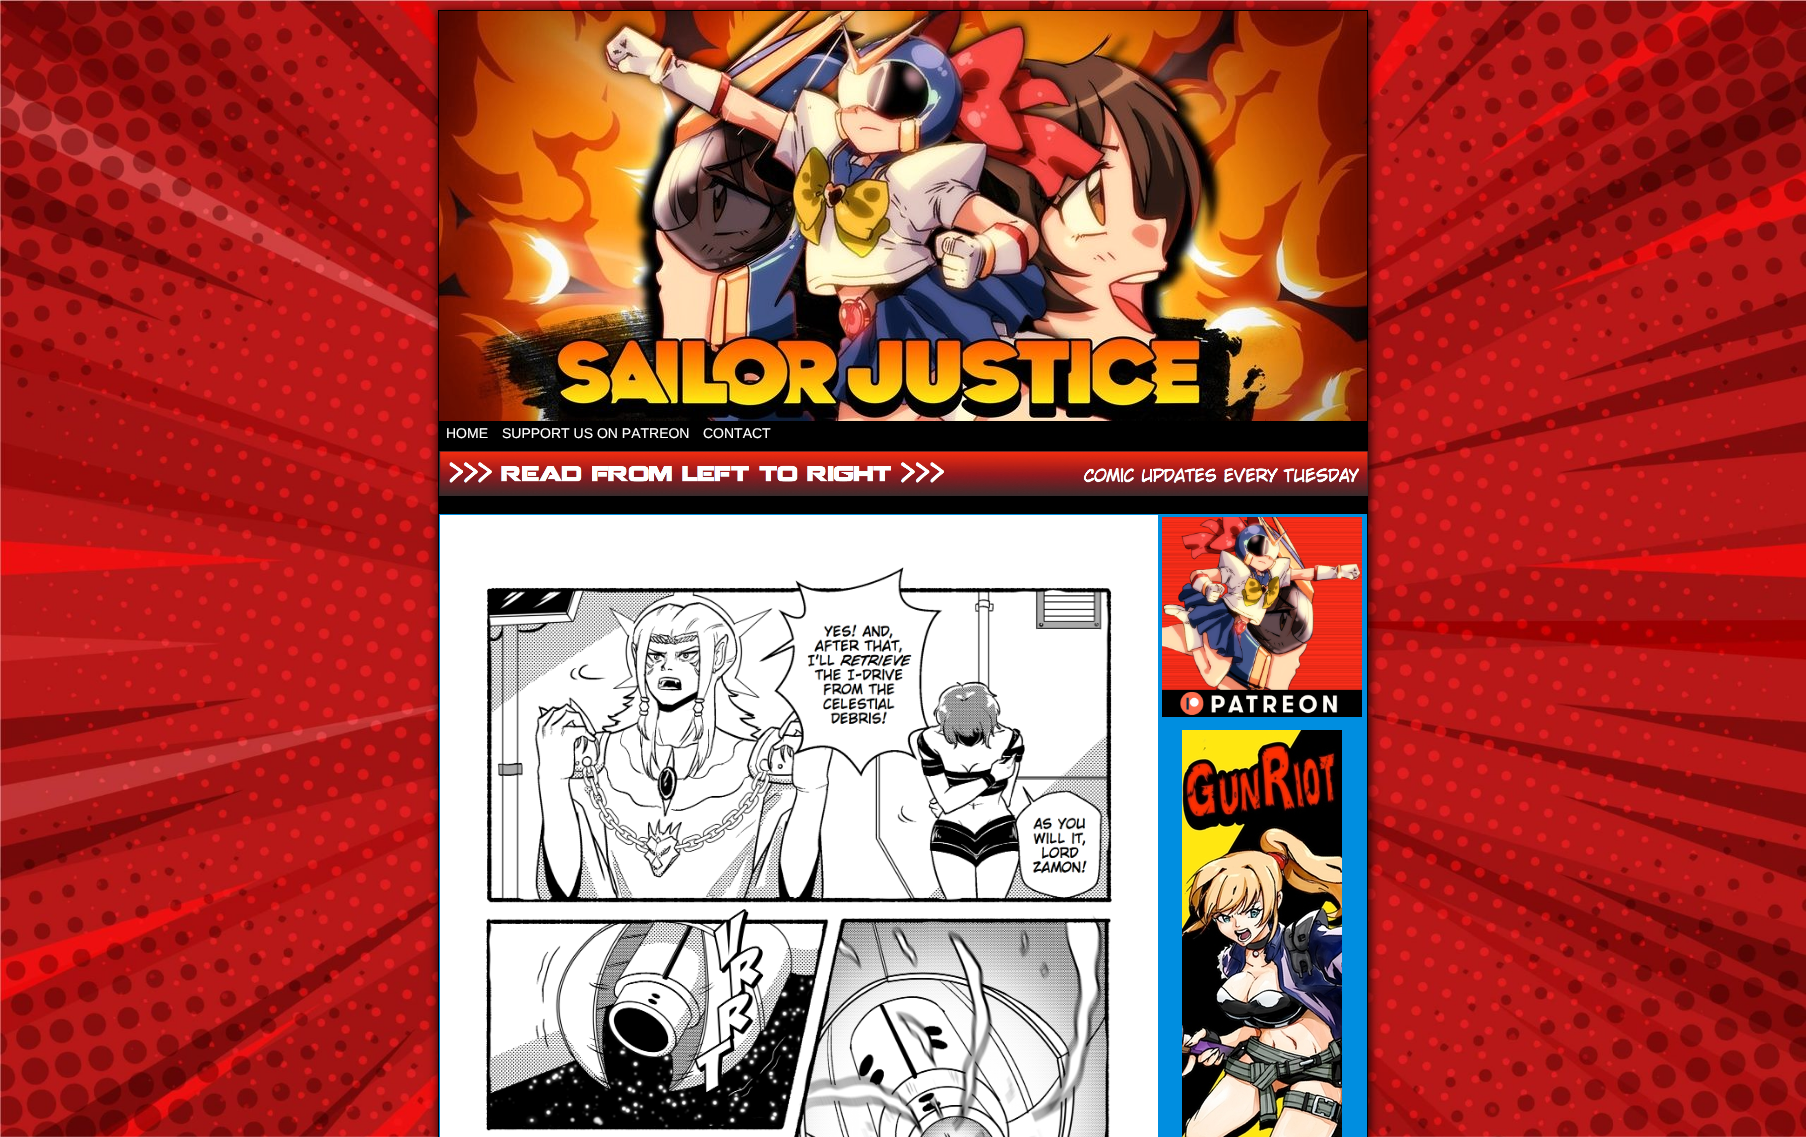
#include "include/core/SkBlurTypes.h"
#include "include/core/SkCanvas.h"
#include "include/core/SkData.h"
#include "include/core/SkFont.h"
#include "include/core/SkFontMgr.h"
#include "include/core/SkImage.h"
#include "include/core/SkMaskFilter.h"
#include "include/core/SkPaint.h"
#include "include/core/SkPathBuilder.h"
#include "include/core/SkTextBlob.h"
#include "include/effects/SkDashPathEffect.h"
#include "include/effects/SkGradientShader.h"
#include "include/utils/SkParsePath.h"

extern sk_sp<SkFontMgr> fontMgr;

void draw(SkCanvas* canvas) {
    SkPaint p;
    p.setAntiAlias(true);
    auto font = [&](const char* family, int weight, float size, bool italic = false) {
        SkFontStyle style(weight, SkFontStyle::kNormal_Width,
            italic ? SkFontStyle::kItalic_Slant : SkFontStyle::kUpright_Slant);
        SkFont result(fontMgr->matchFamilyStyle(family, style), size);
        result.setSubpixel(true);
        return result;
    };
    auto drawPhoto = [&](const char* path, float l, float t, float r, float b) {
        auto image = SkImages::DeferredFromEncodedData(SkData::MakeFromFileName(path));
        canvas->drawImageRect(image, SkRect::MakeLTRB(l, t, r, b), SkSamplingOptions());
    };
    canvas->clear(0xFFFFFFFF);
    drawPhoto("media/1.png", 0, 0, 1806, 1137);
    p.setColor(0xFF000000);
    p.setMaskFilter(SkMaskFilter::MakeBlur(kNormal_SkBlurStyle, 5));
    canvas->drawRect(SkRect::MakeLTRB(439, 12, 1369, 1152), p);
    p.setMaskFilter(nullptr);
    canvas->drawRect(SkRect::MakeLTRB(438, 10, 1368, 1137), p);
    drawPhoto("media/2.png", 439, 11, 1367, 421);
    auto font1 = font("Liberation Sans", 400, 14);
    p.setColor(0xFFFFFFFF);
    {
        const struct { const char* s; float x, y; } items[] = {
            {"HOME", 446, 438},
            {"SUPPORT US ON PATREON", 502, 438},
            {"CONTACT", 703, 438},
        };
        for (auto [s, x, y] : items) {
            canvas->drawString(s, x, y, font1, p);
        }
    }
    drawPhoto("media/3.png", 439, 451, 1368, 496);
    p.setColor(0xFF008EE0);
    canvas->drawRect(SkRect::MakeLTRB(439, 514, 1367, 1137), p);
    drawPhoto("media/4.png", 440, 515, 1158, 1137);
    drawPhoto("media/5.png", 1162, 517, 1362, 717);
    drawPhoto("media/6.png", 1182, 730, 1342, 1137);
}
